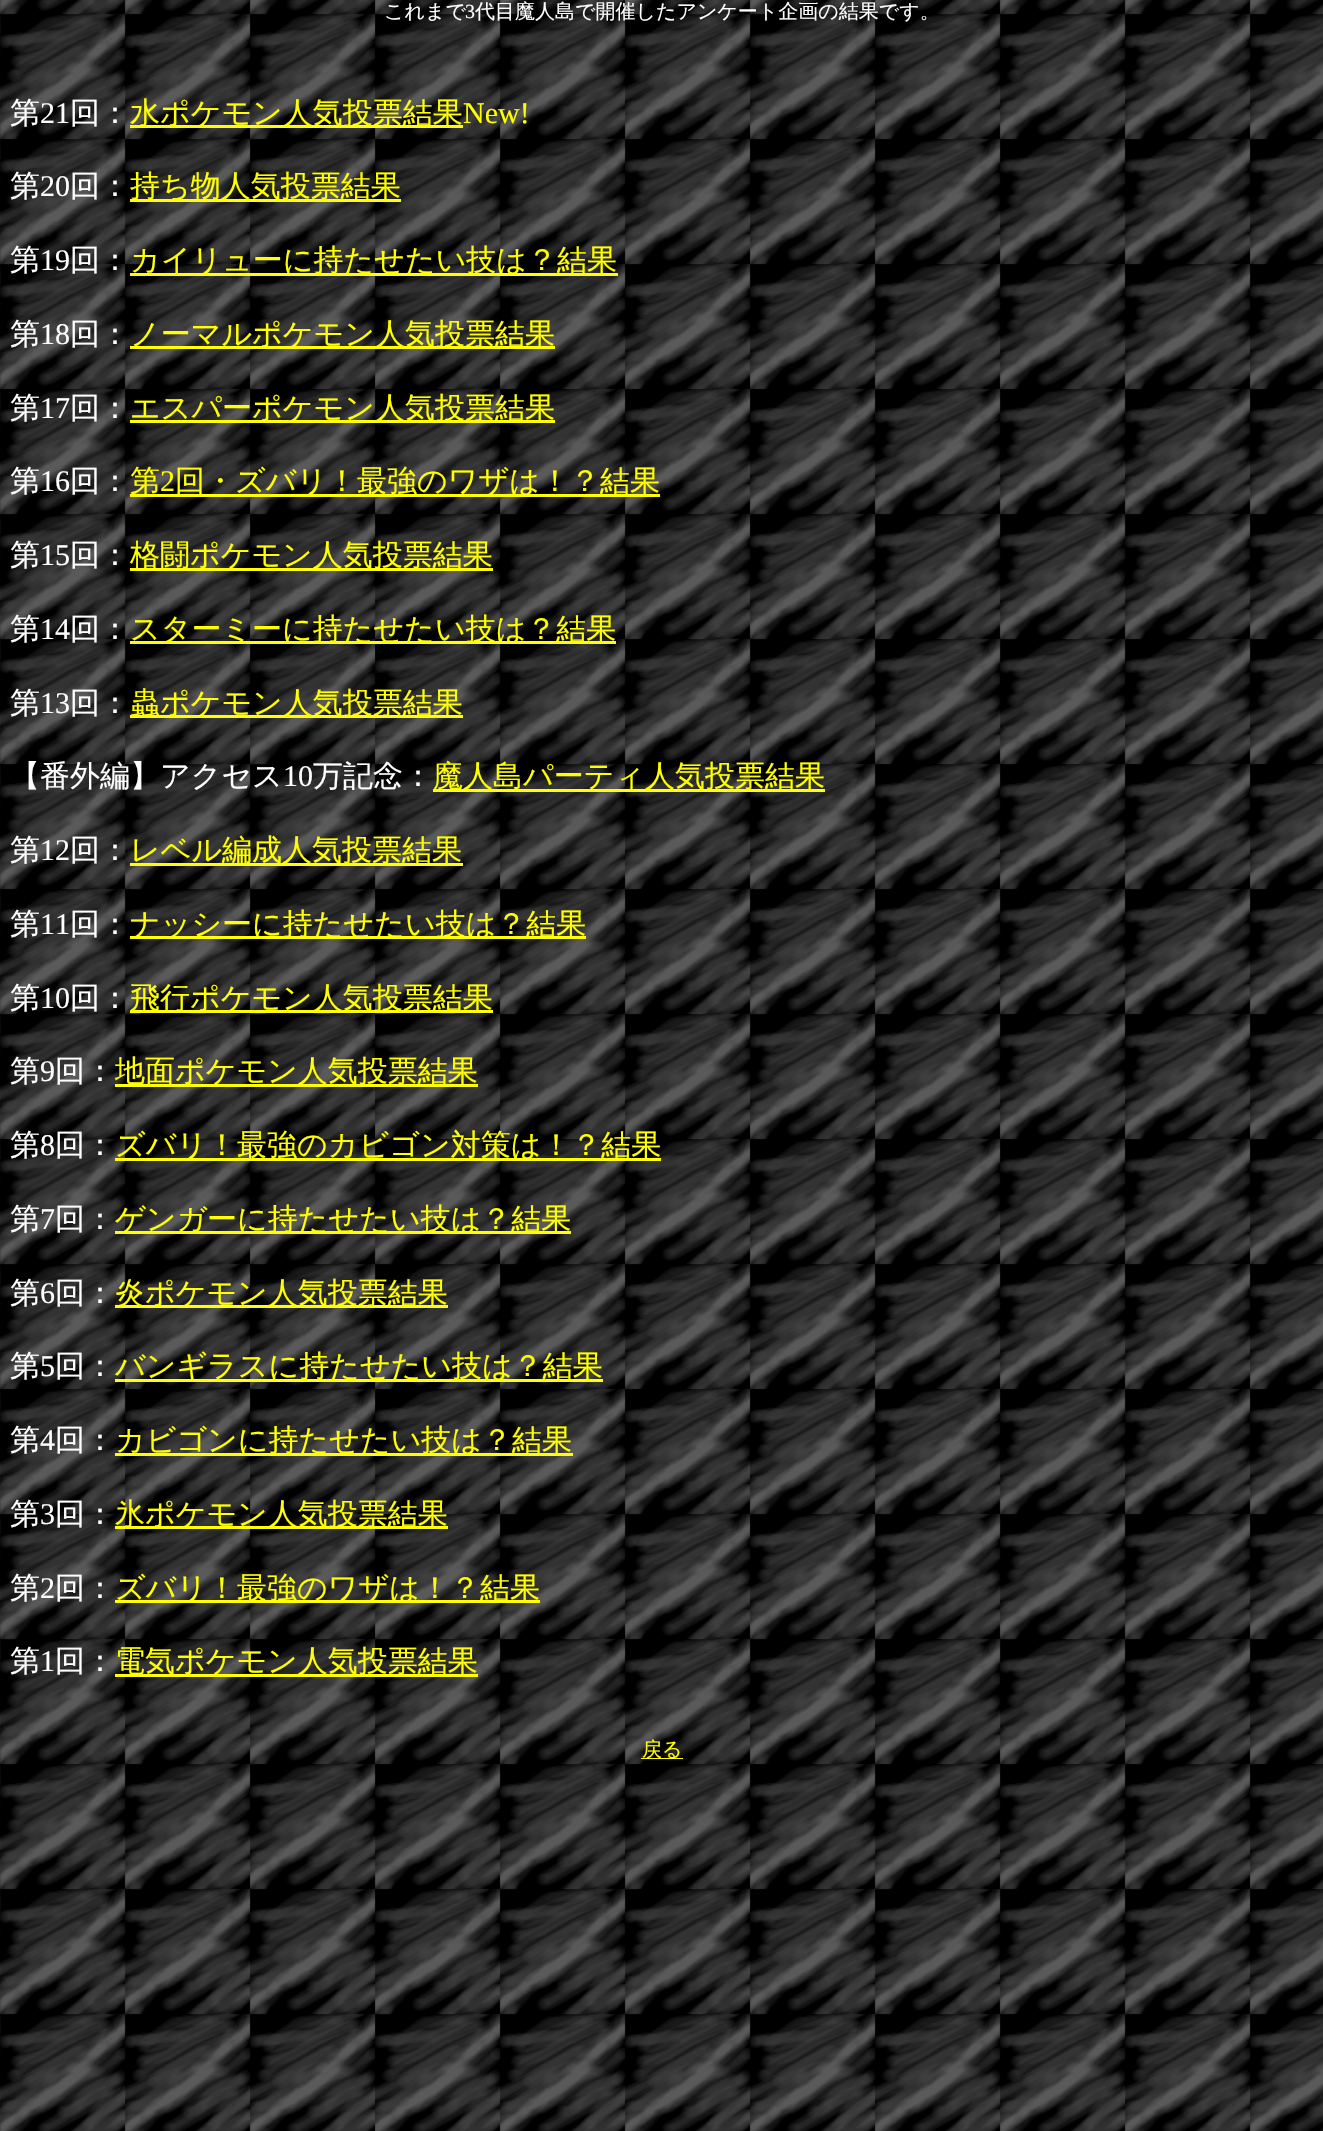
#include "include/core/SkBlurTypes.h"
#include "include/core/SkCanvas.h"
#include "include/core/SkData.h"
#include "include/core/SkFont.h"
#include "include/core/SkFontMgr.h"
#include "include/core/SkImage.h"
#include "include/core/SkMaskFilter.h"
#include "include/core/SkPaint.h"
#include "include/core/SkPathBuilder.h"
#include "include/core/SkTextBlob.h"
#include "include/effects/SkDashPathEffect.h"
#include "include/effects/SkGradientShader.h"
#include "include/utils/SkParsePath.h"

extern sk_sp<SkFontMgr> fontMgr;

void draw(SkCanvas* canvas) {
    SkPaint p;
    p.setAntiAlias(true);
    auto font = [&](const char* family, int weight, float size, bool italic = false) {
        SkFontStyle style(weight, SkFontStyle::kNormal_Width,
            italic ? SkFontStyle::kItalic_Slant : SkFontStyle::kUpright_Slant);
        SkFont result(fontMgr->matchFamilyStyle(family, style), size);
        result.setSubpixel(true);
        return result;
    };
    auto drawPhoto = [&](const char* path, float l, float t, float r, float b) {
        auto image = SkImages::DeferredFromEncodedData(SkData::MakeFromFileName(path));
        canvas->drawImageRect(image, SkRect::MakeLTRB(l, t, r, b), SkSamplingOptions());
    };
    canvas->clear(0xFFFFFFFF);
    drawPhoto("media/1.png", 0, 0, 1323, 2131);
    auto font1 = font("WenQuanYi Zen Hei", 500, 20);
    p.setColor(0xFFFFFFFF);
    canvas->drawString("これまで", 384, 18, font1, p);
    auto font2 = font("Liberation Serif", 400, 20);
    canvas->drawString("3", 465, 18, font2, p);
    canvas->drawString("代目魔人島で開催したアンケート企画の結果です。", 475, 18, font1, p);
    auto font3 = font("WenQuanYi Zen Hei", 500, 30);
    canvas->drawString("第", 10, 123, font3, p);
    auto font4 = font("Liberation Serif", 400, 30);
    canvas->drawString("21", 40, 123, font4, p);
    canvas->drawString("回：", 70, 123, font3, p);
    p.setColor(0xFFFFFF00);
    canvas->drawRect(SkRect::MakeLTRB(130, 125, 463, 128), p);
    canvas->drawString("水ポケモン人気投票結果", 130, 123, font3, p);
    canvas->drawString("New!", 463, 123, font4, p);
    p.setColor(0xFFFFFFFF);
    canvas->drawString("第", 10, 196, font3, p);
    canvas->drawString("20", 40, 196, font4, p);
    canvas->drawString("回：", 70, 196, font3, p);
    p.setColor(0xFFFFFF00);
    canvas->drawRect(SkRect::MakeLTRB(130, 199, 401, 202), p);
    canvas->drawString("持ち物人気投票結果", 130, 196, font3, p);
    p.setColor(0xFFFFFFFF);
    canvas->drawString("第", 10, 270, font3, p);
    canvas->drawString("19", 40, 270, font4, p);
    canvas->drawString("回：", 70, 270, font3, p);
    p.setColor(0xFFFFFF00);
    canvas->drawRect(SkRect::MakeLTRB(130, 273, 618, 276), p);
    canvas->drawString("カイリューに持たせたい技は？結果", 130, 270, font3, p);
    p.setColor(0xFFFFFFFF);
    canvas->drawString("第", 10, 344, font3, p);
    canvas->drawString("18", 40, 344, font4, p);
    canvas->drawString("回：", 70, 344, font3, p);
    p.setColor(0xFFFFFF00);
    canvas->drawRect(SkRect::MakeLTRB(130, 346, 555, 349), p);
    canvas->drawString("ノーマルポケモン人気投票結果", 130, 344, font3, p);
    p.setColor(0xFFFFFFFF);
    canvas->drawString("第", 10, 418, font3, p);
    canvas->drawString("17", 40, 418, font4, p);
    canvas->drawString("回：", 70, 418, font3, p);
    p.setColor(0xFFFFFF00);
    canvas->drawRect(SkRect::MakeLTRB(130, 420, 555, 423), p);
    canvas->drawString("エスパーポケモン人気投票結果", 130, 418, font3, p);
    p.setColor(0xFFFFFFFF);
    canvas->drawString("第", 10, 491, font3, p);
    canvas->drawString("16", 40, 491, font4, p);
    canvas->drawString("回：", 70, 491, font3, p);
    p.setColor(0xFFFFFF00);
    canvas->drawRect(SkRect::MakeLTRB(130, 494, 660, 497), p);
    canvas->drawString("第", 130, 491, font3, p);
    canvas->drawString("2", 160, 491, font4, p);
    canvas->drawString("回・ズバリ！最強のワザは！？結果", 175, 491, font3, p);
    p.setColor(0xFFFFFFFF);
    canvas->drawString("第", 10, 565, font3, p);
    canvas->drawString("15", 40, 565, font4, p);
    canvas->drawString("回：", 70, 565, font3, p);
    p.setColor(0xFFFFFF00);
    canvas->drawRect(SkRect::MakeLTRB(130, 568, 493, 571), p);
    canvas->drawString("格闘ポケモン人気投票結果", 130, 565, font3, p);
    p.setColor(0xFFFFFFFF);
    canvas->drawString("第", 10, 639, font3, p);
    canvas->drawString("14", 40, 639, font4, p);
    canvas->drawString("回：", 70, 639, font3, p);
    p.setColor(0xFFFFFF00);
    canvas->drawRect(SkRect::MakeLTRB(130, 641, 616, 644), p);
    canvas->drawString("スターミーに持たせたい技は？結果", 130, 639, font3, p);
    p.setColor(0xFFFFFFFF);
    canvas->drawString("第", 10, 713, font3, p);
    canvas->drawString("13", 40, 713, font4, p);
    canvas->drawString("回：", 70, 713, font3, p);
    p.setColor(0xFFFFFF00);
    canvas->drawRect(SkRect::MakeLTRB(130, 715, 463, 718), p);
    canvas->drawString("蟲ポケモン人気投票結果", 130, 713, font3, p);
    p.setColor(0xFFFFFFFF);
    canvas->drawString("【番外編】アクセス", 10, 786, font3, p);
    canvas->drawString("10", 283, 786, font4, p);
    canvas->drawString("万記念：", 313, 786, font3, p);
    p.setColor(0xFFFFFF00);
    canvas->drawRect(SkRect::MakeLTRB(433, 789, 825, 792), p);
    canvas->drawString("魔人島パーティ人気投票結果", 433, 786, font3, p);
    p.setColor(0xFFFFFFFF);
    canvas->drawString("第", 10, 860, font3, p);
    canvas->drawString("12", 40, 860, font4, p);
    canvas->drawString("回：", 70, 860, font3, p);
    p.setColor(0xFFFFFF00);
    canvas->drawRect(SkRect::MakeLTRB(130, 863, 463, 866), p);
    canvas->drawString("レベル編成人気投票結果", 130, 860, font3, p);
    p.setColor(0xFFFFFFFF);
    canvas->drawString("第", 10, 934, font3, p);
    canvas->drawString("11", 40, 934, font4, p);
    canvas->drawString("回：", 70, 934, font3, p);
    p.setColor(0xFFFFFF00);
    canvas->drawRect(SkRect::MakeLTRB(130, 936, 586, 939), p);
    canvas->drawString("ナッシーに持たせたい技は？結果", 130, 934, font3, p);
    p.setColor(0xFFFFFFFF);
    canvas->drawString("第", 10, 1008, font3, p);
    canvas->drawString("10", 40, 1008, font4, p);
    canvas->drawString("回：", 70, 1008, font3, p);
    p.setColor(0xFFFFFF00);
    canvas->drawRect(SkRect::MakeLTRB(130, 1010, 493, 1013), p);
    canvas->drawString("飛行ポケモン人気投票結果", 130, 1008, font3, p);
    p.setColor(0xFFFFFFFF);
    canvas->drawString("第", 10, 1081, font3, p);
    canvas->drawString("9", 40, 1081, font4, p);
    canvas->drawString("回：", 55, 1081, font3, p);
    p.setColor(0xFFFFFF00);
    canvas->drawRect(SkRect::MakeLTRB(115, 1084, 478, 1087), p);
    canvas->drawString("地面ポケモン人気投票結果", 115, 1081, font3, p);
    p.setColor(0xFFFFFFFF);
    canvas->drawString("第", 10, 1155, font3, p);
    canvas->drawString("8", 40, 1155, font4, p);
    canvas->drawString("回：", 55, 1155, font3, p);
    p.setColor(0xFFFFFF00);
    canvas->drawRect(SkRect::MakeLTRB(115, 1158, 661, 1161), p);
    canvas->drawString("ズバリ！最強のカビゴン対策は！？結果", 115, 1155, font3, p);
    p.setColor(0xFFFFFFFF);
    canvas->drawString("第", 10, 1229, font3, p);
    canvas->drawString("7", 40, 1229, font4, p);
    canvas->drawString("回：", 55, 1229, font3, p);
    p.setColor(0xFFFFFF00);
    canvas->drawRect(SkRect::MakeLTRB(115, 1231, 571, 1234), p);
    canvas->drawString("ゲンガーに持たせたい技は？結果", 115, 1229, font3, p);
    p.setColor(0xFFFFFFFF);
    canvas->drawString("第", 10, 1303, font3, p);
    canvas->drawString("6", 40, 1303, font4, p);
    canvas->drawString("回：", 55, 1303, font3, p);
    p.setColor(0xFFFFFF00);
    canvas->drawRect(SkRect::MakeLTRB(115, 1305, 448, 1308), p);
    canvas->drawString("炎ポケモン人気投票結果", 115, 1303, font3, p);
    p.setColor(0xFFFFFFFF);
    canvas->drawString("第", 10, 1376, font3, p);
    canvas->drawString("5", 40, 1376, font4, p);
    canvas->drawString("回：", 55, 1376, font3, p);
    p.setColor(0xFFFFFF00);
    canvas->drawRect(SkRect::MakeLTRB(115, 1379, 603, 1382), p);
    canvas->drawString("バンギラスに持たせたい技は？結果", 115, 1376, font3, p);
    p.setColor(0xFFFFFFFF);
    canvas->drawString("第", 10, 1450, font3, p);
    canvas->drawString("4", 40, 1450, font4, p);
    canvas->drawString("回：", 55, 1450, font3, p);
    p.setColor(0xFFFFFF00);
    canvas->drawRect(SkRect::MakeLTRB(115, 1453, 573, 1456), p);
    canvas->drawString("カビゴンに持たせたい技は？結果", 115, 1450, font3, p);
    p.setColor(0xFFFFFFFF);
    canvas->drawString("第", 10, 1524, font3, p);
    canvas->drawString("3", 40, 1524, font4, p);
    canvas->drawString("回：", 55, 1524, font3, p);
    p.setColor(0xFFFFFF00);
    canvas->drawRect(SkRect::MakeLTRB(115, 1526, 448, 1529), p);
    canvas->drawString("氷ポケモン人気投票結果", 115, 1524, font3, p);
    p.setColor(0xFFFFFFFF);
    canvas->drawString("第", 10, 1598, font3, p);
    canvas->drawString("2", 40, 1598, font4, p);
    canvas->drawString("回：", 55, 1598, font3, p);
    p.setColor(0xFFFFFF00);
    canvas->drawRect(SkRect::MakeLTRB(115, 1600, 540, 1603), p);
    canvas->drawString("ズバリ！最強のワザは！？結果", 115, 1598, font3, p);
    p.setColor(0xFFFFFFFF);
    canvas->drawString("第", 10, 1671, font3, p);
    canvas->drawString("1", 40, 1671, font4, p);
    canvas->drawString("回：", 55, 1671, font3, p);
    p.setColor(0xFFFFFF00);
    canvas->drawRect(SkRect::MakeLTRB(115, 1674, 478, 1677), p);
    canvas->drawString("電気ポケモン人気投票結果", 115, 1671, font3, p);
    canvas->drawRect(SkRect::MakeLTRB(641, 1758, 683, 1759), p);
    canvas->drawString("戻る", 642, 1756, font1, p);
}
